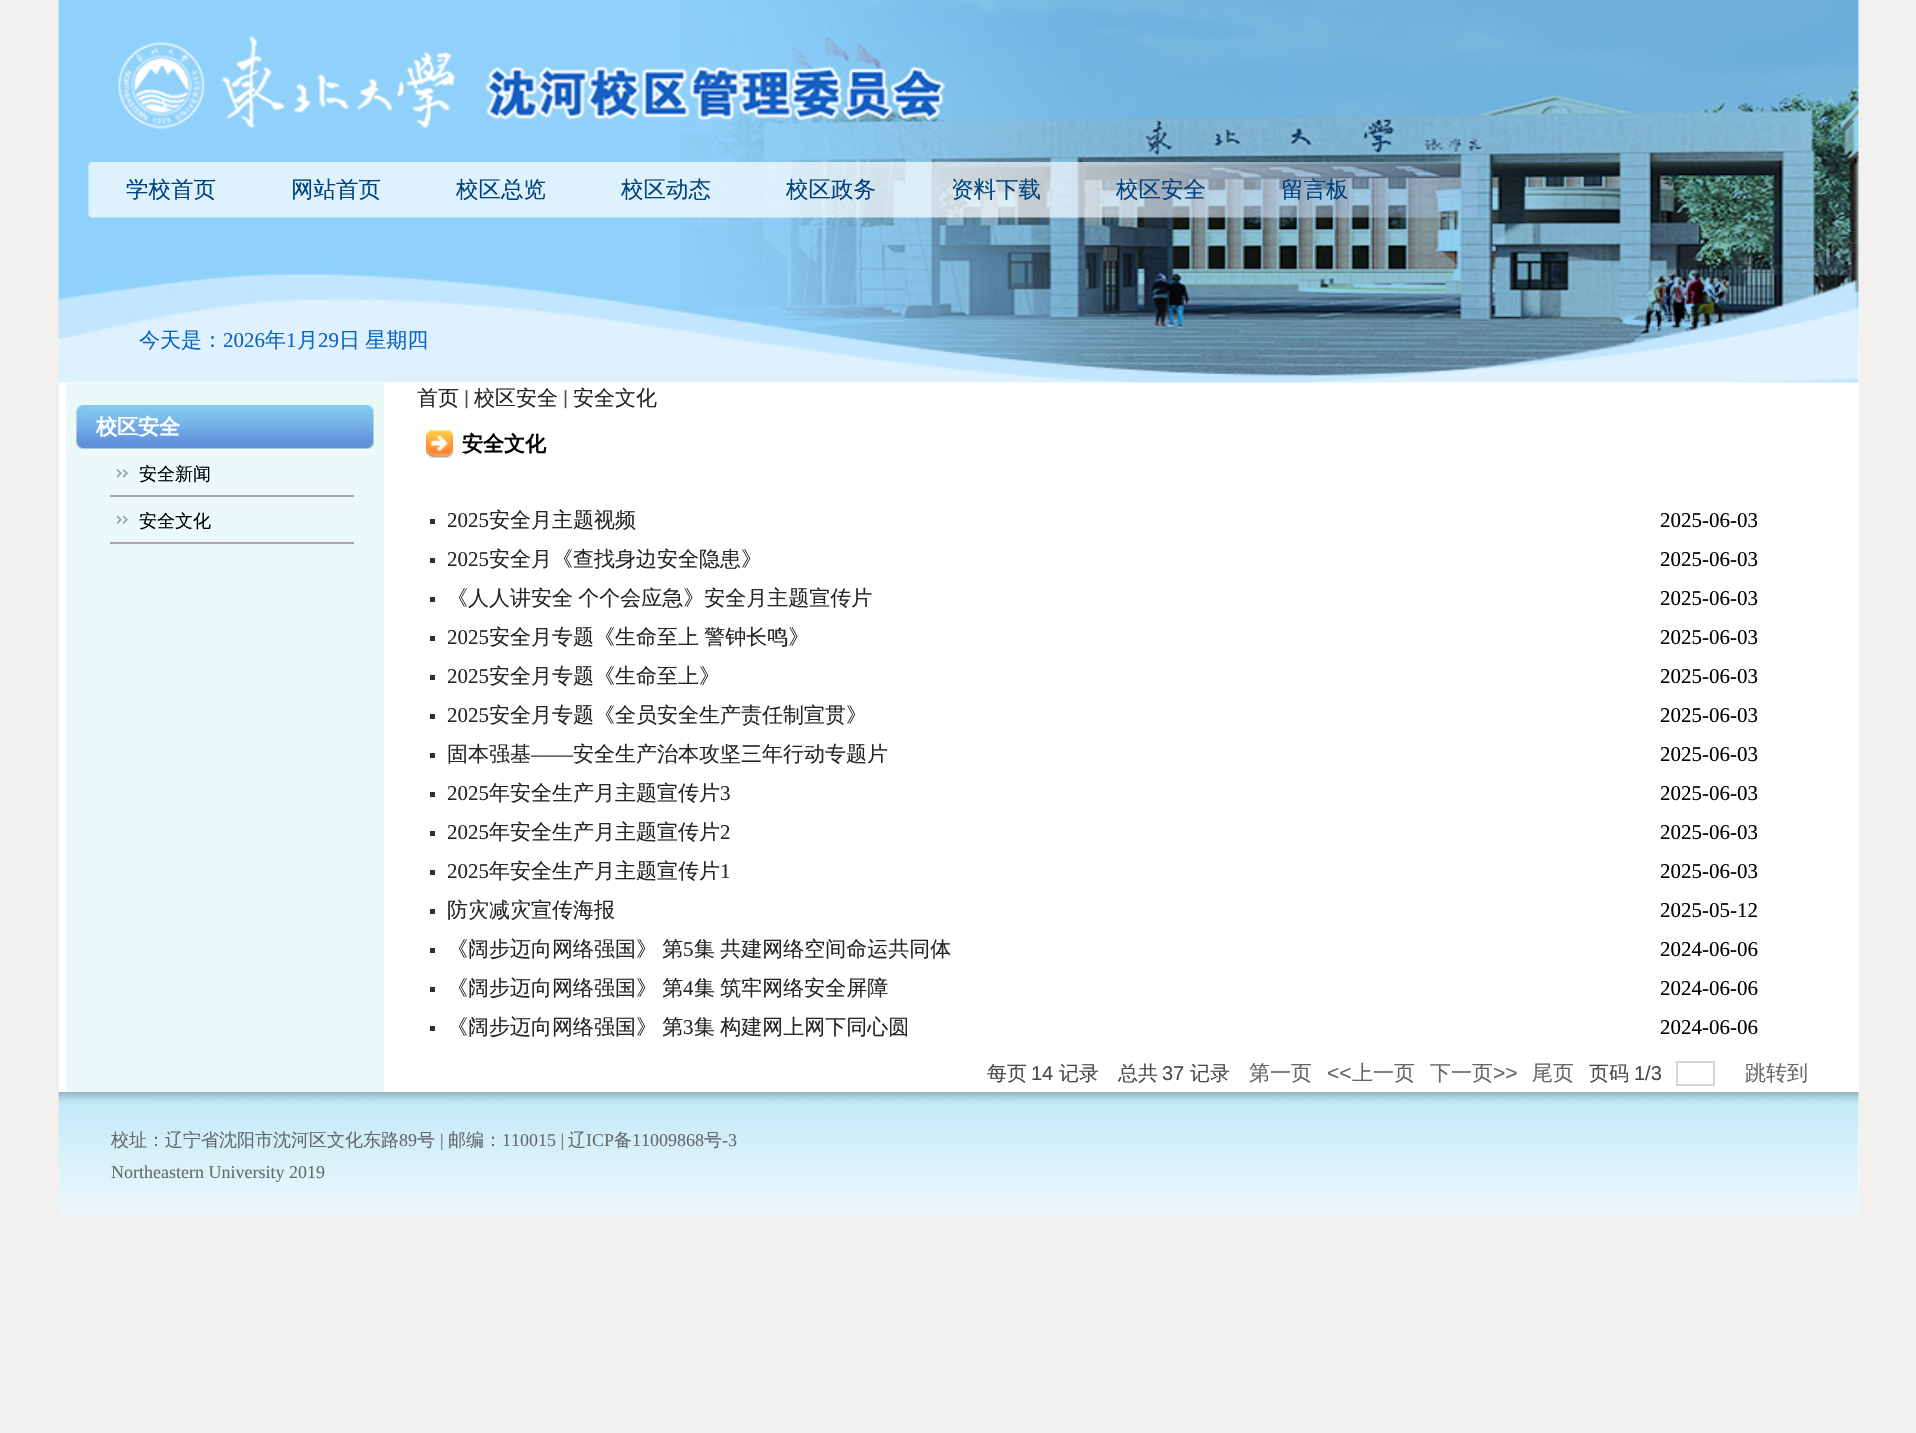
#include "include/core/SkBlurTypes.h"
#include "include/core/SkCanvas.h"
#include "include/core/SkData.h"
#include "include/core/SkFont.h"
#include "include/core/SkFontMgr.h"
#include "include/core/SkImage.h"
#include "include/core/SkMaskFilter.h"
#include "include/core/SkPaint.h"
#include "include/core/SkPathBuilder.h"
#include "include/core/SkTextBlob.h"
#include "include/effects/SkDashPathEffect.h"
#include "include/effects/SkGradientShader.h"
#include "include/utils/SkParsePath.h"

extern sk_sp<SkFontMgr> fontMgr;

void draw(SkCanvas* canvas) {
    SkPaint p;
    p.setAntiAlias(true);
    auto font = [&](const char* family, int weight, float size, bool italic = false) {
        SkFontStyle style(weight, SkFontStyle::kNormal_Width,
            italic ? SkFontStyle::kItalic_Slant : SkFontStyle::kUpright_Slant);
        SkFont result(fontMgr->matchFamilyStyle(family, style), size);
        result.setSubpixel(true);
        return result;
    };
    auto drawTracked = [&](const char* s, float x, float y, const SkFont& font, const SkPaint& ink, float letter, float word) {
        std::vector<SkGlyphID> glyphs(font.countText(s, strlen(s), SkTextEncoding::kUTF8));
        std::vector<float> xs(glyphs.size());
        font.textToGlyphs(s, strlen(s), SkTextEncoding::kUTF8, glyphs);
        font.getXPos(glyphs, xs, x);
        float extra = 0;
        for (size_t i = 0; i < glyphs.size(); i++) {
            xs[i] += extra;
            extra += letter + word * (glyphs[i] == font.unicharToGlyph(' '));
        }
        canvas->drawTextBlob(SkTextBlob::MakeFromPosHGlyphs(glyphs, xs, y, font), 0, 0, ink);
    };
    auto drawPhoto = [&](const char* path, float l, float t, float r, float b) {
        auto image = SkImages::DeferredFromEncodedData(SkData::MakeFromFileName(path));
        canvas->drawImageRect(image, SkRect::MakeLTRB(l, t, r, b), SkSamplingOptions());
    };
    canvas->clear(0xFFF3F0F0);
    p.setColor(0xFFFFFFFF);
    canvas->drawRect(SkRect::MakeLTRB(59, 0, 1859, 1215), p);
    drawPhoto("media/1.png", 58, 0, 1859, 383);
    drawPhoto("media/2.png", 118, 35, 946, 130);
    drawPhoto("media/3.png", 88, 162, 1479, 218);
    auto font1 = font("WenQuanYi Zen Hei", 500, 22.5f);
    p.setColor(0xFF00427F);
    {
        const struct { const char* s; float x, y; } items[] = {
            {"学校首页", 126, 197},
            {"网站首页", 291, 197},
            {"校区总览", 456, 197},
            {"校区动态", 621, 197},
            {"校区政务", 786, 197},
            {"资料下载", 951, 197},
            {"校区安全", 1116, 197},
            {"留言板", 1281, 197},
        };
        for (auto [s, x, y] : items) {
            canvas->drawString(s, x, y, font1, p);
        }
    }
    auto font2 = font("WenQuanYi Zen Hei", 500, 21);
    p.setColor(0xFF0965C2);
    canvas->drawString("今天是：", 139, 347, font2, p);
    auto font3 = font("Liberation Serif", 400, 21);
    canvas->drawString("2026", 223, 347, font3, p);
    canvas->drawString("年", 265, 347, font2, p);
    canvas->drawString("1", 286, 347, font3, p);
    canvas->drawString("月", 297, 347, font2, p);
    canvas->drawString("29", 318, 347, font3, p);
    drawTracked("日 星期四", 339, 347, font2, p, 0, -1);
    p.setColor(0xFFECF9F9);
    canvas->drawRect(SkRect::MakeLTRB(66, 383, 384, 1092), p);
    drawPhoto("media/4.png", 66, 405, 378, 449);
    auto font4 = font("WenQuanYi Zen Hei", 700, 21);
    p.setColor(0xFFFFFFFF);
    canvas->drawString("校区安全", 96, 434, font4, p);
    drawPhoto("media/5.png", 116, 469, 128, 478);
    p.setColor(0xFFA7A7A7);
    canvas->drawRect(SkRect::MakeLTRB(110, 495, 354, 497), p);
    auto font5 = font("WenQuanYi Zen Hei", 500, 18);
    p.setColor(0xFF000000);
    canvas->drawString("安全新闻", 139, 480, font5, p);
    drawPhoto("media/6.png", 116, 515, 128, 524);
    p.setColor(0xFFA7A7A7);
    canvas->drawRect(SkRect::MakeLTRB(110, 542, 354, 544), p);
    p.setColor(0xFF000000);
    canvas->drawString("安全文化", 139, 527, font5, p);
    p.setColor(0xFF262626);
    canvas->drawString("首页", 417, 405, font2, p);
    drawPhoto("media/7.png", 465, 389, 468, 409);
    canvas->drawString("校区安全", 474, 405, font2, p);
    drawPhoto("media/7.png", 564, 389, 567, 409);
    canvas->drawString("安全文化", 573, 405, font2, p);
    drawPhoto("media/8.png", 426, 430, 453, 458);
    p.setColor(0xFF000000);
    canvas->drawString("安全文化", 462, 451, font4, p);
    p.setColor(0xFF2F2F2F);
    canvas->drawRect(SkRect::MakeLTRB(430, 519, 435, 524), p);
    p.setColor(0xFF262626);
    canvas->drawString("2025", 447, 527, font3, p);
    canvas->drawString("安全月主题视频", 489, 527, font2, p);
    p.setColor(0xFF000000);
    canvas->drawString("2025-06-03", 1660, 527, font3, p);
    p.setColor(0xFF2F2F2F);
    canvas->drawRect(SkRect::MakeLTRB(430, 558, 435, 563), p);
    p.setColor(0xFF262626);
    canvas->drawString("2025", 447, 566, font3, p);
    canvas->drawString("安全月《查找身边安全隐患》", 489, 566, font2, p);
    p.setColor(0xFF000000);
    canvas->drawString("2025-06-03", 1660, 566, font3, p);
    p.setColor(0xFF2F2F2F);
    canvas->drawRect(SkRect::MakeLTRB(430, 597, 435, 602), p);
    p.setColor(0xFF262626);
    drawTracked("《人人讲安全 个个会应急》安全月主题宣传片", 447, 605, font2, p, 0, -1);
    p.setColor(0xFF000000);
    canvas->drawString("2025-06-03", 1660, 605, font3, p);
    p.setColor(0xFF2F2F2F);
    canvas->drawRect(SkRect::MakeLTRB(430, 636, 435, 641), p);
    p.setColor(0xFF262626);
    canvas->drawString("2025", 447, 644, font3, p);
    drawTracked("安全月专题《生命至上 警钟长鸣》", 489, 644, font2, p, 0, -1);
    p.setColor(0xFF000000);
    canvas->drawString("2025-06-03", 1660, 644, font3, p);
    p.setColor(0xFF2F2F2F);
    canvas->drawRect(SkRect::MakeLTRB(430, 675, 435, 680), p);
    p.setColor(0xFF262626);
    canvas->drawString("2025", 447, 683, font3, p);
    canvas->drawString("安全月专题《生命至上》", 489, 683, font2, p);
    p.setColor(0xFF000000);
    canvas->drawString("2025-06-03", 1660, 683, font3, p);
    p.setColor(0xFF2F2F2F);
    canvas->drawRect(SkRect::MakeLTRB(430, 714, 435, 719), p);
    p.setColor(0xFF262626);
    canvas->drawString("2025", 447, 722, font3, p);
    canvas->drawString("安全月专题《全员安全生产责任制宣贯》", 489, 722, font2, p);
    p.setColor(0xFF000000);
    canvas->drawString("2025-06-03", 1660, 722, font3, p);
    p.setColor(0xFF2F2F2F);
    canvas->drawRect(SkRect::MakeLTRB(430, 753, 435, 758), p);
    p.setColor(0xFF262626);
    canvas->drawString("固本强基", 447, 761, font2, p);
    canvas->drawString("——", 531, 761, font3, p);
    canvas->drawString("安全生产治本攻坚三年行动专题片", 573, 761, font2, p);
    p.setColor(0xFF000000);
    canvas->drawString("2025-06-03", 1660, 761, font3, p);
    p.setColor(0xFF2F2F2F);
    canvas->drawRect(SkRect::MakeLTRB(430, 792, 435, 797), p);
    p.setColor(0xFF262626);
    canvas->drawString("2025", 447, 800, font3, p);
    canvas->drawString("年安全生产月主题宣传片", 489, 800, font2, p);
    canvas->drawString("3", 720, 800, font3, p);
    p.setColor(0xFF000000);
    canvas->drawString("2025-06-03", 1660, 800, font3, p);
    p.setColor(0xFF2F2F2F);
    canvas->drawRect(SkRect::MakeLTRB(430, 831, 435, 836), p);
    p.setColor(0xFF262626);
    canvas->drawString("2025", 447, 839, font3, p);
    canvas->drawString("年安全生产月主题宣传片", 489, 839, font2, p);
    canvas->drawString("2", 720, 839, font3, p);
    p.setColor(0xFF000000);
    canvas->drawString("2025-06-03", 1660, 839, font3, p);
    p.setColor(0xFF2F2F2F);
    canvas->drawRect(SkRect::MakeLTRB(430, 870, 435, 875), p);
    p.setColor(0xFF262626);
    canvas->drawString("2025", 447, 878, font3, p);
    canvas->drawString("年安全生产月主题宣传片", 489, 878, font2, p);
    canvas->drawString("1", 720, 878, font3, p);
    p.setColor(0xFF000000);
    canvas->drawString("2025-06-03", 1660, 878, font3, p);
    p.setColor(0xFF2F2F2F);
    canvas->drawRect(SkRect::MakeLTRB(430, 909, 435, 914), p);
    p.setColor(0xFF262626);
    canvas->drawString("防灾减灾宣传海报", 447, 917, font2, p);
    p.setColor(0xFF000000);
    canvas->drawString("2025-05-12", 1660, 917, font3, p);
    p.setColor(0xFF2F2F2F);
    canvas->drawRect(SkRect::MakeLTRB(430, 948, 435, 953), p);
    p.setColor(0xFF262626);
    drawTracked("《阔步迈向网络强国》 第", 447, 956, font2, p, 0, -1);
    canvas->drawString("5", 683, 956, font3, p);
    drawTracked("集 共建网络空间命运共同体", 694, 956, font2, p, 0, -1);
    p.setColor(0xFF000000);
    canvas->drawString("2024-06-06", 1660, 956, font3, p);
    p.setColor(0xFF2F2F2F);
    canvas->drawRect(SkRect::MakeLTRB(430, 987, 435, 992), p);
    p.setColor(0xFF262626);
    drawTracked("《阔步迈向网络强国》 第", 447, 995, font2, p, 0, -1);
    canvas->drawString("4", 683, 995, font3, p);
    drawTracked("集 筑牢网络安全屏障", 694, 995, font2, p, 0, -1);
    p.setColor(0xFF000000);
    canvas->drawString("2024-06-06", 1660, 995, font3, p);
    p.setColor(0xFF2F2F2F);
    canvas->drawRect(SkRect::MakeLTRB(430, 1026, 435, 1031), p);
    p.setColor(0xFF262626);
    drawTracked("《阔步迈向网络强国》 第", 447, 1034, font2, p, 0, -1);
    canvas->drawString("3", 683, 1034, font3, p);
    drawTracked("集 构建网上网下同心圆", 694, 1034, font2, p, 0, -1);
    p.setColor(0xFF000000);
    canvas->drawString("2024-06-06", 1660, 1034, font3, p);
    auto font6 = font("WenQuanYi Zen Hei", 500, 20);
    p.setColor(0xFF494949);
    canvas->drawString("每页", 987, 1080, font6, p);
    auto font7 = font("Liberation Sans", 400, 20);
    canvas->drawString("14", 1031, 1080, font7, p);
    canvas->drawString("记录", 1059, 1080, font6, p);
    canvas->drawString("总共", 1118, 1080, font6, p);
    canvas->drawString("37", 1162, 1080, font7, p);
    canvas->drawString("记录", 1190, 1080, font6, p);
    p.setColor(0xFF666666);
    canvas->drawString("第一页", 1249, 1080, font2, p);
    auto font8 = font("Liberation Sans", 400, 21);
    canvas->drawString("<<", 1327, 1080, font8, p);
    canvas->drawString("上一页", 1352, 1080, font2, p);
    canvas->drawString("下一页", 1430, 1080, font2, p);
    canvas->drawString(">>", 1493, 1080, font8, p);
    canvas->drawString("尾页", 1532, 1080, font2, p);
    p.setColor(0xFF494949);
    canvas->drawString("页码", 1589, 1080, font6, p);
    canvas->drawString("1/3", 1634, 1080, font7, p);
    p.setStyle(SkPaint::kStroke_Style);
    p.setStrokeWidth(2);
    p.setColor(0xFFD5D5D5);
    canvas->drawRect(SkRect::MakeLTRB(1677, 1062, 1714, 1085), p);
    p.setStyle(SkPaint::kFill_Style);
    p.setColor(0xFF666666);
    canvas->drawString("跳转到", 1745, 1080, font2, p);
    drawPhoto("media/9.png", 58, 1092, 1859, 1215);
    p.setColor(0xFF636A6C);
    canvas->drawString("校址：辽宁省沈阳市沈河区文化东路", 111, 1146, font5, p);
    auto font9 = font("Liberation Serif", 400, 18);
    canvas->drawString("89", 399, 1146, font9, p);
    canvas->drawString("号", 417, 1146, font5, p);
    canvas->drawString("|", 440, 1146, font9, p);
    canvas->drawString("邮编：", 448, 1146, font5, p);
    canvas->drawString("110015 |", 502, 1146, font9, p);
    canvas->drawString("辽", 568, 1146, font5, p);
    canvas->drawString("ICP", 586, 1146, font9, p);
    canvas->drawString("备", 614, 1146, font5, p);
    canvas->drawString("11009868", 632, 1146, font9, p);
    canvas->drawString("号", 704, 1146, font5, p);
    canvas->drawString("-3", 722, 1146, font9, p);
    canvas->drawString("Northeastern University 2019", 111, 1178, font9, p);
}
